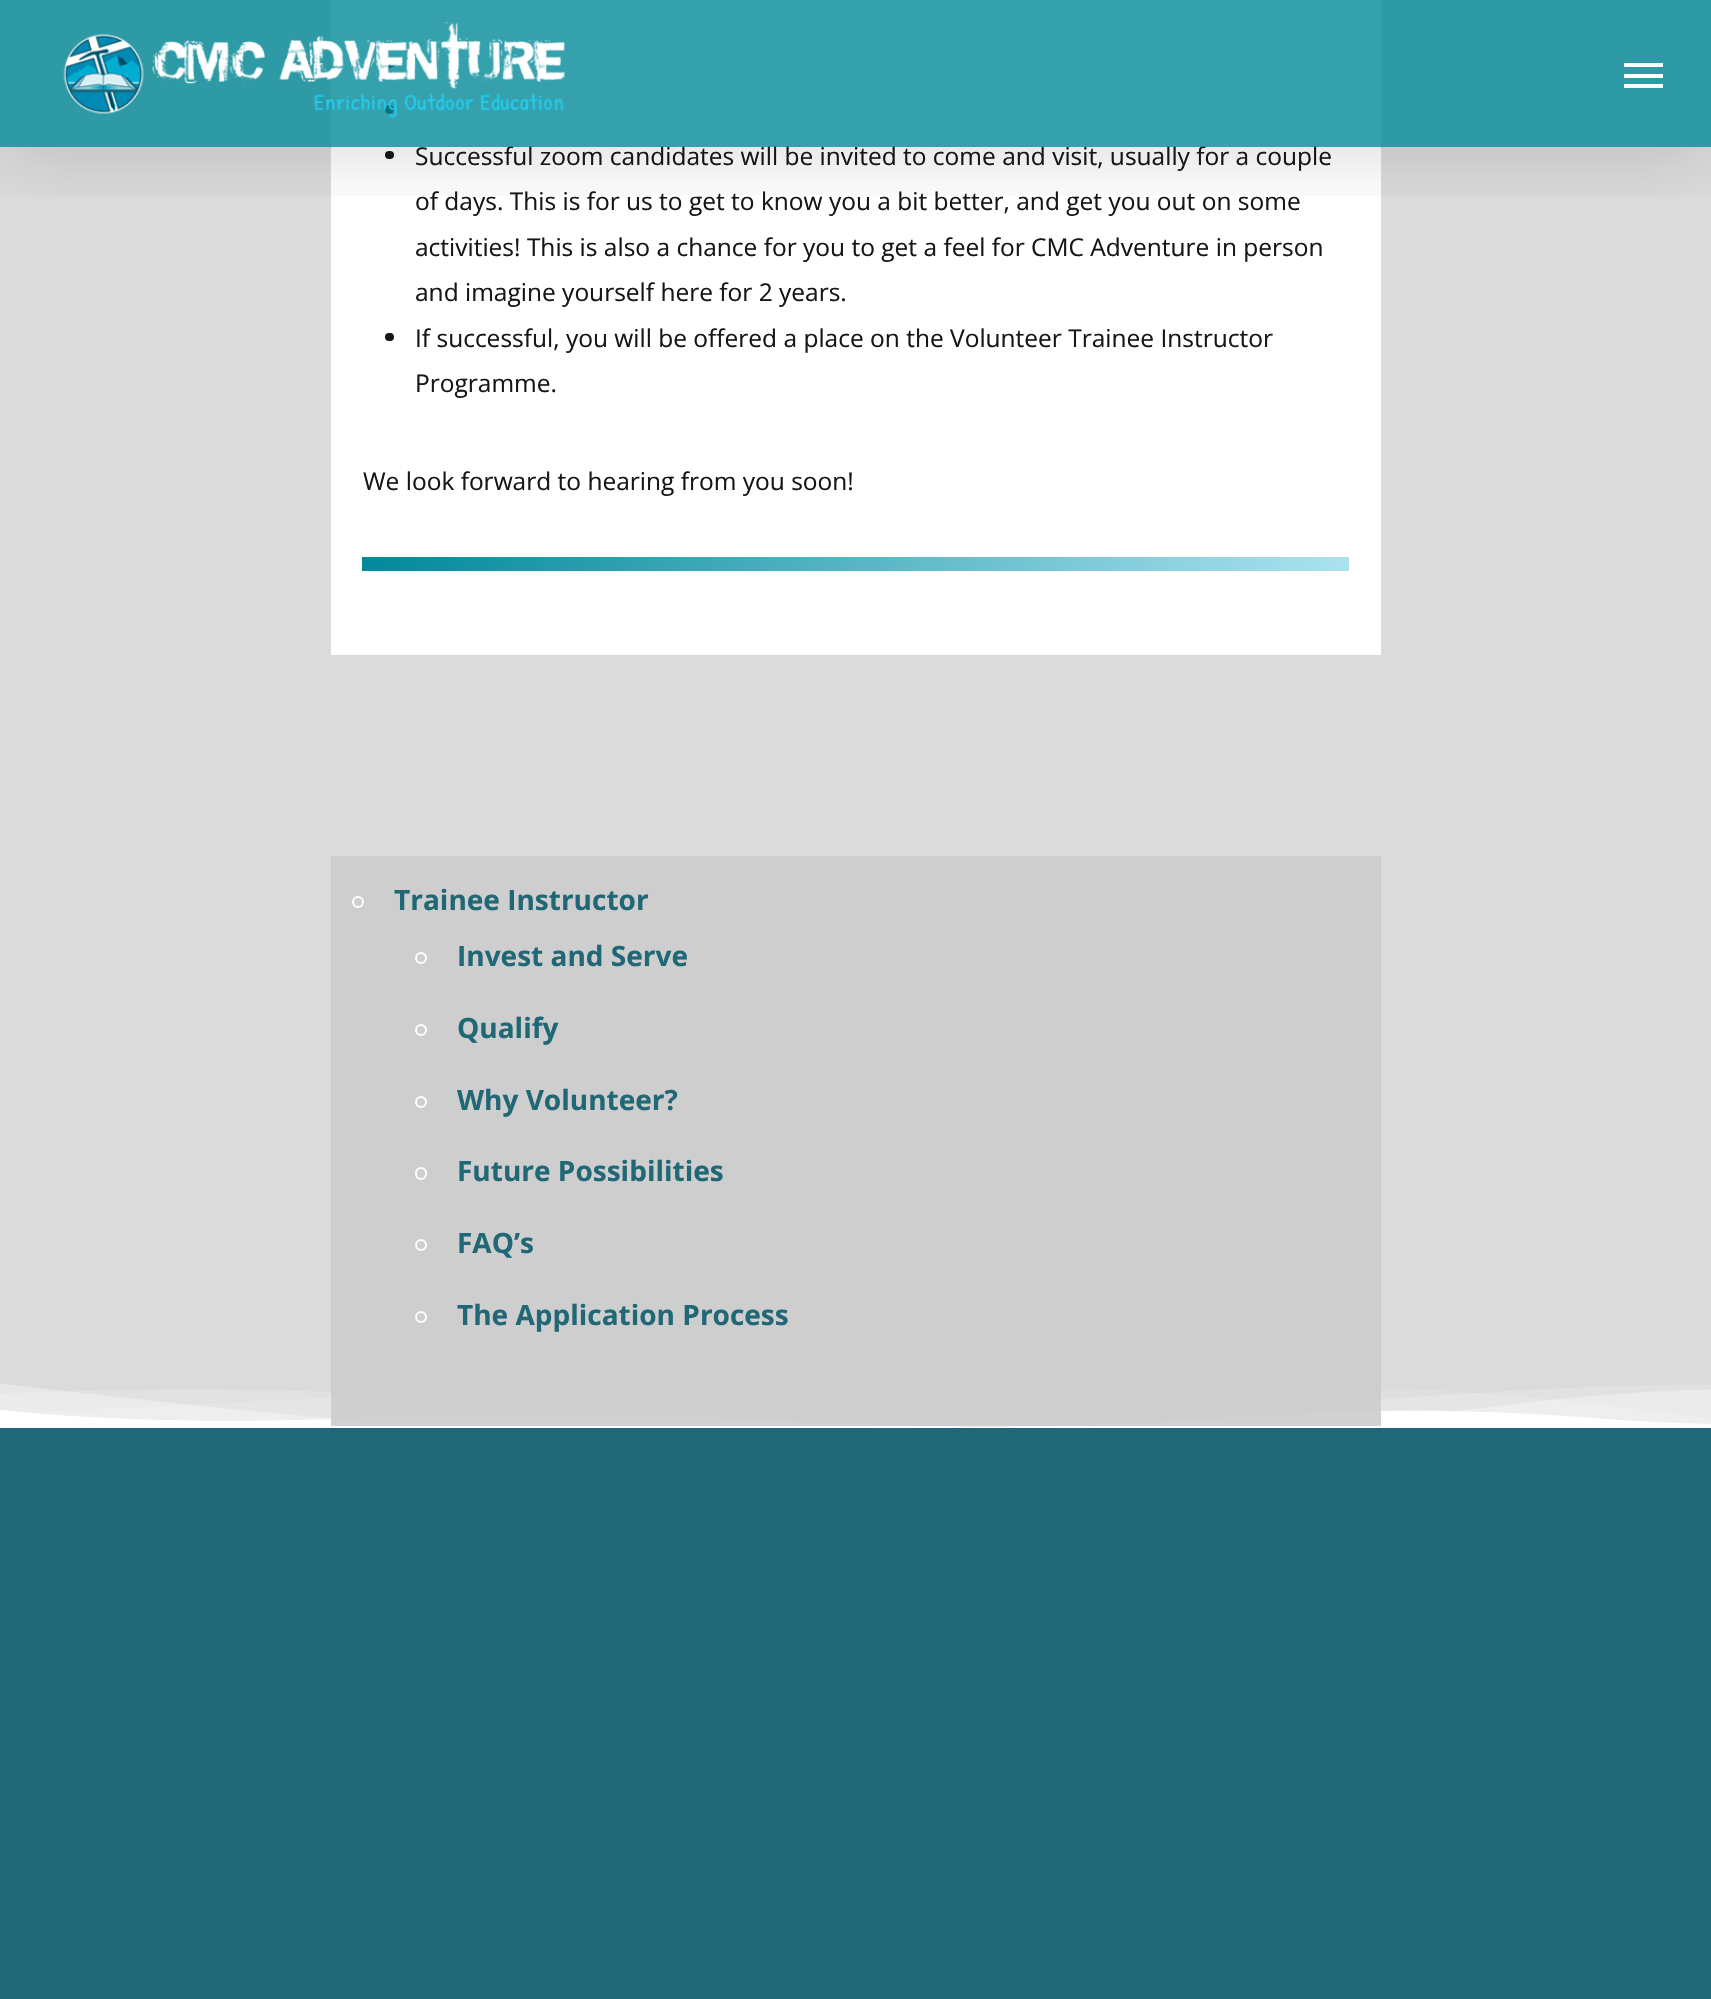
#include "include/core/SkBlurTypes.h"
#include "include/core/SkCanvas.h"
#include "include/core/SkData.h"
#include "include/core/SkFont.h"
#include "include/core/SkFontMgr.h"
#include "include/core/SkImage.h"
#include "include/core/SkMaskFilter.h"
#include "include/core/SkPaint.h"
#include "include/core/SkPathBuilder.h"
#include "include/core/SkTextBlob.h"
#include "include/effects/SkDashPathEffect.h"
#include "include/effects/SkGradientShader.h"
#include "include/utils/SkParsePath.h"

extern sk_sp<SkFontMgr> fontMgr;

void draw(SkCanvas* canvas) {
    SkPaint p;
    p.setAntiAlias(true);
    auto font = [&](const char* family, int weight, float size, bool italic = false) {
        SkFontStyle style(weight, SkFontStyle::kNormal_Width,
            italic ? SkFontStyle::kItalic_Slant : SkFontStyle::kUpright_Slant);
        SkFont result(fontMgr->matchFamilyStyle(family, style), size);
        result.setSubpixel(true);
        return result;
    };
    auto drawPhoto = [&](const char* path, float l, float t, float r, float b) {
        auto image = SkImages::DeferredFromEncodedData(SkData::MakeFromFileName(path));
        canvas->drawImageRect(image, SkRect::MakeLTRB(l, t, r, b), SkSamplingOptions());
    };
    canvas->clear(0xFFDBDBDB);
    p.setColor(0xFFFFFFFF);
    canvas->drawRect(SkRect::MakeLTRB(331, 0, 1381, 655), p);
    p.setColor(0xFF161616);
    canvas->drawRoundRect(SkRect::MakeLTRB(385, 60, 394, 68), 4, 4, p);
    canvas->drawCircle(389.5f, 109.5f, 4.5f, p);
    canvas->drawRoundRect(SkRect::MakeLTRB(385, 151, 394, 159), 4, 4, p);
    canvas->save();
    canvas->clipRect(SkRect::MakeLTRB(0, 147, 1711, 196));
    p.setColor(0x26000000);
    p.setMaskFilter(SkMaskFilter::MakeBlur(kNormal_SkBlurStyle, 39.5f));
    canvas->drawRect(SkRect::MakeLTRB(0, -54, 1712, 152), p);
    p.setMaskFilter(nullptr);
    canvas->restore();
    auto font1 = font("Open Sans", 400, 24.5f);
    p.setColor(0xFF161616);
    canvas->drawString("Successful zoom candidates will be invited to come and visit, usually for a couple", 415, 165, font1, p);
    p.setColor(0xCC018999);
    canvas->drawRect(SkRect::MakeLTRB(0, 0, 1711, 147), p);
    drawPhoto("media/1.png", 63, 22, 565, 118);
    {
        const struct { float l, t, r, b; SkColor color; } items[] = {
            {1624, 63, 1663, 67, 0xFFFFFFFF},
            {1624, 84, 1663, 88, 0xFFFFFFFF},
            {1624, 74, 1663, 78, 0xFFFFFFFF},
        };
        for (auto [l, t, r, b, color] : items) {
            p.setColor(color);
            canvas->drawRect(SkRect::MakeLTRB(l, t, r, b), p);
        }
    }
    p.setColor(0xFF161616);
    {
        const struct { const char* s; float x, y; } items[] = {
            {"of days. This is for us to get to know you a bit better, and get you out on some", 415, 210},
            {"activities! This is also a chance for you to get a feel for CMC Adventure in person", 415, 256},
            {"and imagine yourself here for 2 years.", 415, 301},
        };
        for (auto [s, x, y] : items) {
            canvas->drawString(s, x, y, font1, p);
        }
    }
    canvas->drawRoundRect(SkRect::MakeLTRB(385, 333, 394, 341), 4, 4, p);
    {
        const struct { const char* s; float x, y; } items[] = {
            {"If successful, you will be offered a place on the Volunteer Trainee Instructor", 415, 347},
            {"Programme.", 415, 392},
            {"We look forward to hearing from you soon!", 363, 490},
        };
        for (auto [s, x, y] : items) {
            canvas->drawString(s, x, y, font1, p);
        }
    }
    {
        const SkColor colors[] = {0xFF018999, 0xFFACE2EF};
        const float stops[] = {0, 1};
        const SkPoint ends[] = {{362, 564}, {1349, 564}};
        p.setShader(SkGradientShader::MakeLinear(ends, colors, stops, 2, SkTileMode::kClamp));
        p.setAlpha(255);
    }
    canvas->drawRect(SkRect::MakeLTRB(362, 557, 1349, 571), p);
    p.setShader(nullptr);
    p.setColor(0xFF216876);
    canvas->drawRect(SkRect::MakeLTRB(0, 1426, 1711, 1999), p);
    drawPhoto("media/2.png", 0, 1383, 1711, 1428);
    p.setColor(0xE6CCCCCC);
    canvas->drawRect(SkRect::MakeLTRB(331, 856, 1381, 1426), p);
    p.setStyle(SkPaint::kStroke_Style);
    p.setStrokeWidth(2);
    p.setColor(0xFFFFFFFF);
    canvas->drawCircle(358, 902, 5, p);
    auto font2 = font("Open Sans", 700, 28);
    p.setStyle(SkPaint::kFill_Style);
    p.setColor(0xFF216876);
    canvas->drawString("Trainee Instructor", 394, 910, font2, p);
    p.setStyle(SkPaint::kStroke_Style);
    p.setColor(0xFFFFFFFF);
    canvas->drawCircle(421, 958, 5, p);
    p.setStyle(SkPaint::kFill_Style);
    p.setColor(0xFF216876);
    canvas->drawString("Invest and Serve", 457, 966, font2, p);
    p.setStyle(SkPaint::kStroke_Style);
    p.setColor(0xFFFFFFFF);
    canvas->drawCircle(421, 1030, 5, p);
    p.setStyle(SkPaint::kFill_Style);
    p.setColor(0xFF216876);
    canvas->drawString("Qualify", 457, 1038, font2, p);
    p.setStyle(SkPaint::kStroke_Style);
    p.setColor(0xFFFFFFFF);
    canvas->drawCircle(421, 1102, 5, p);
    p.setStyle(SkPaint::kFill_Style);
    p.setColor(0xFF216876);
    canvas->drawString("Why Volunteer?", 457, 1110, font2, p);
    p.setStyle(SkPaint::kStroke_Style);
    p.setColor(0xFFFFFFFF);
    canvas->drawRoundRect(SkRect::MakeLTRB(416, 1168, 426, 1179), 5, 5, p);
    p.setStyle(SkPaint::kFill_Style);
    p.setColor(0xFF216876);
    canvas->drawString("Future Possibilities", 457, 1181, font2, p);
    p.setStyle(SkPaint::kStroke_Style);
    p.setColor(0xFFFFFFFF);
    canvas->drawCircle(421, 1245, 5, p);
    p.setStyle(SkPaint::kFill_Style);
    p.setColor(0xFF216876);
    canvas->drawString("FAQ’s", 457, 1253, font2, p);
    p.setStyle(SkPaint::kStroke_Style);
    p.setColor(0xFFFFFFFF);
    canvas->drawCircle(421, 1317, 5, p);
    p.setStyle(SkPaint::kFill_Style);
    p.setColor(0xFF216876);
    canvas->drawString("The Application Process", 457, 1325, font2, p);
}
